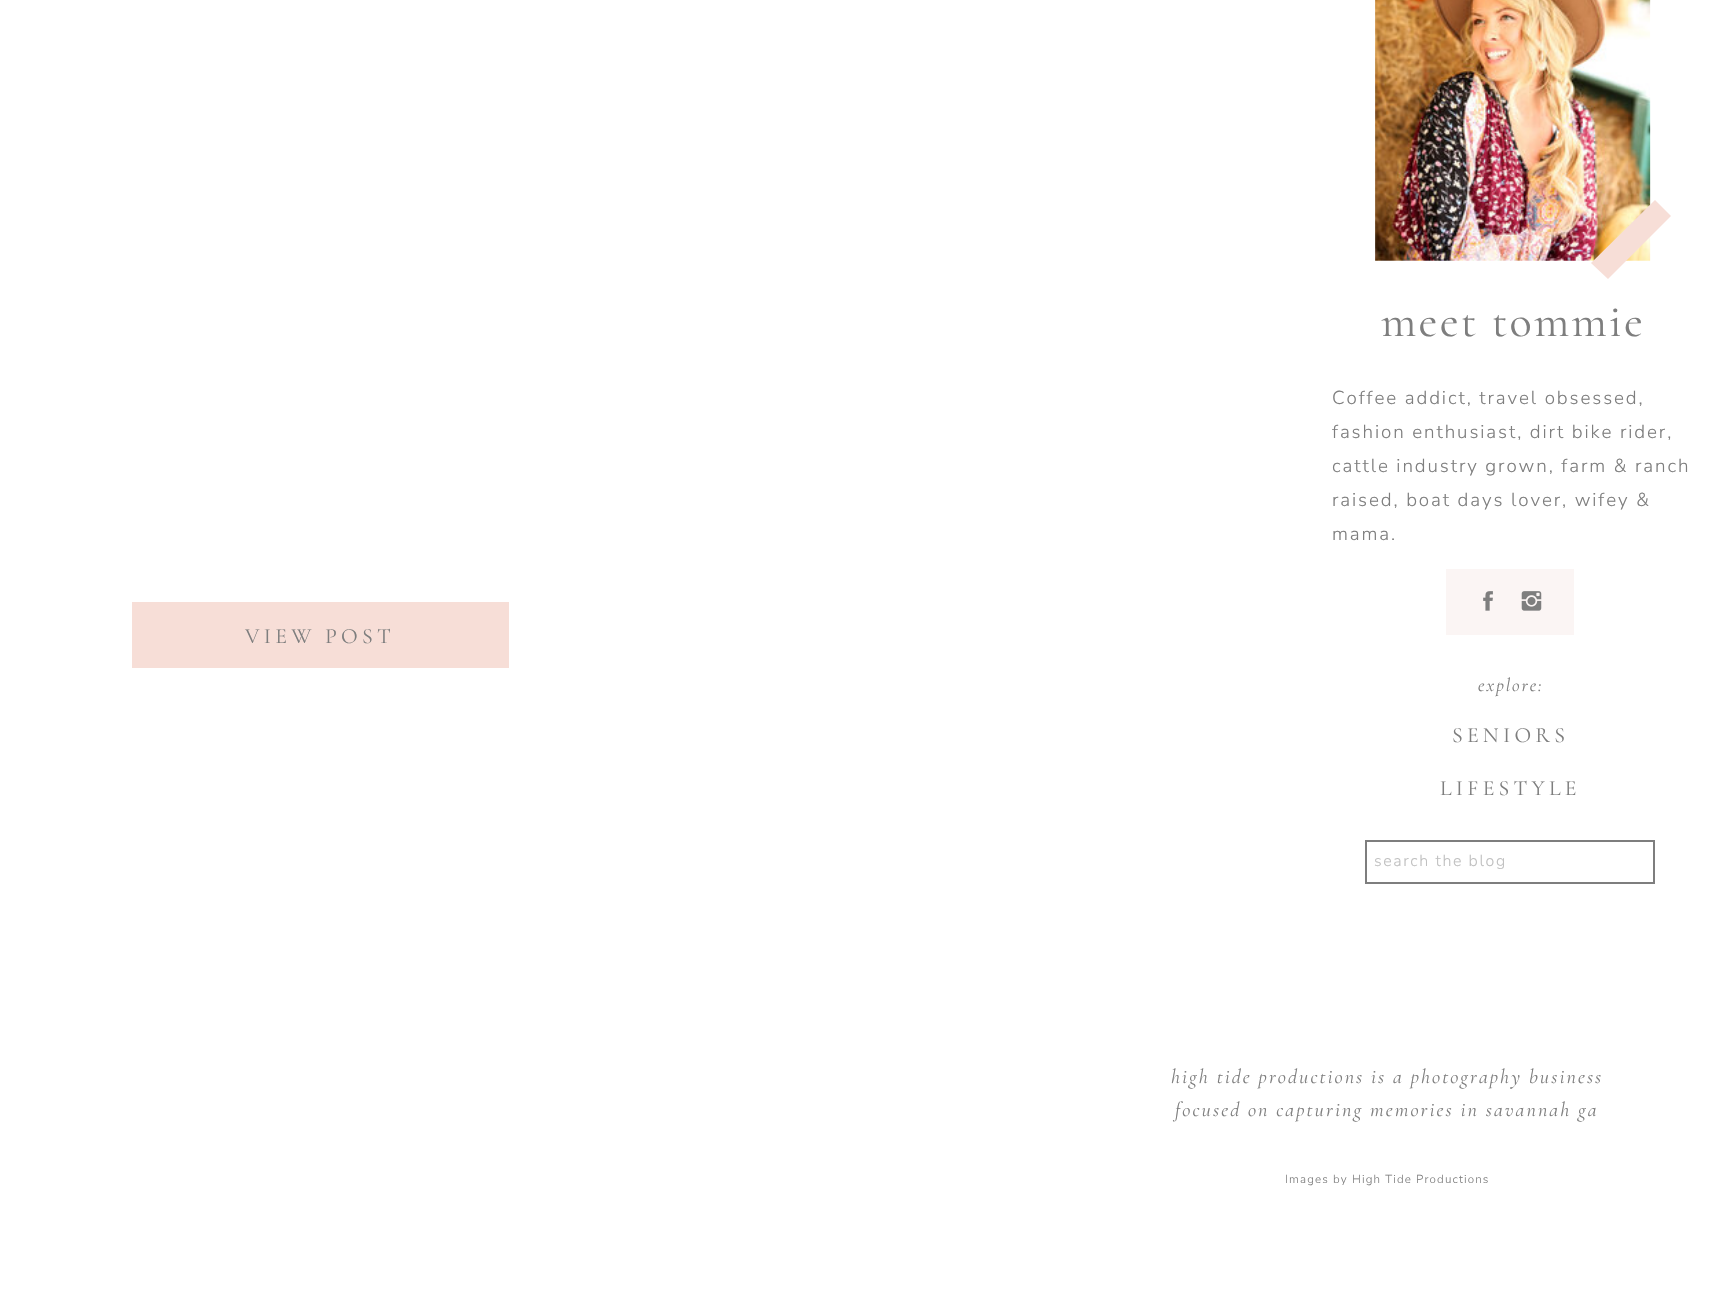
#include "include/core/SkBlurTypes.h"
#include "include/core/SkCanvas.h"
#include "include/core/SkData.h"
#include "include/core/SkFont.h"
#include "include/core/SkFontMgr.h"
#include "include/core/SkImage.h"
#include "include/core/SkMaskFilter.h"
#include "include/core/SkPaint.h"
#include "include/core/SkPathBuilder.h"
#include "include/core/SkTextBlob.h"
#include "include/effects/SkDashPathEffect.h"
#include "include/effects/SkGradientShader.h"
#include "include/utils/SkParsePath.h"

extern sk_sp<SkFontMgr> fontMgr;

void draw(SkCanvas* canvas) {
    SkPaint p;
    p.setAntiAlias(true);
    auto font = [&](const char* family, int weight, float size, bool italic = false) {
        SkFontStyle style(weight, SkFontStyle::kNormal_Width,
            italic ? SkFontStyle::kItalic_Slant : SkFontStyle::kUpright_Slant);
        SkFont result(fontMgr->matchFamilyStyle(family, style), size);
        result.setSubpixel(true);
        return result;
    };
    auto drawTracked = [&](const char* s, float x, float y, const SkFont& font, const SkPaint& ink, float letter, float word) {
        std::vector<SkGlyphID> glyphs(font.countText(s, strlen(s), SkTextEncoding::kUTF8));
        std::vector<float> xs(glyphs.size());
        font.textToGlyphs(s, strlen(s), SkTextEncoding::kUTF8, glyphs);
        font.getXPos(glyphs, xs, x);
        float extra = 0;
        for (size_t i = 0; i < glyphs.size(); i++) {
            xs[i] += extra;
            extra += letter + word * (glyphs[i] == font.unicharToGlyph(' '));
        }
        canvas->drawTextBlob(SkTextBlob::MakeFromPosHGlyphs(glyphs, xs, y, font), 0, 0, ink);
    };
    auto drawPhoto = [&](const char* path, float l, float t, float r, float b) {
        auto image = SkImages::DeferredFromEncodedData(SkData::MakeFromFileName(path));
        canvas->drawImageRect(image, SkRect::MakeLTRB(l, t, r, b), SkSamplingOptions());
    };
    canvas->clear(0xFFFFFFFF);
    p.setColor(0xFFF7DED7);
    canvas->drawRect(SkRect::MakeLTRB(132, 602, 509, 668), p);
    auto font1 = font("Cormorant", 300, 21.75f);
    p.setColor(0xFF7E7E7E);
    drawTracked("VIEW POST", 245, 643, font1, p, 4.25f, 0);
    drawPhoto("media/1.png", 1375, 0, 1651, 261);
    p.setColor(0xFFF7DED7);
    canvas->drawPath(SkPathBuilder().moveTo(1591, 263).lineTo(1655, 200).lineTo(1671, 216).lineTo(1608, 279).close().detach(), p);
    auto font2 = font("Cormorant", 300, 46.25f);
    p.setColor(0xFF7E7E7E);
    drawTracked("meet tommie", 1381, 336, font2, p, 2.25f, 0);
    auto font3 = font("Nunito Sans", 200, 18.8f);
    {
        const struct { const char* s; float x, y; } items[] = {
            {"Coffee addict, travel obsessed,", 1332, 404},
            {"fashion enthusiast, dirt bike rider,", 1332, 438},
            {"cattle industry grown, farm & ranch", 1332, 472},
            {"raised, boat days lover, wifey &", 1332, 506},
            {"mama.", 1332, 540},
        };
        for (auto [s, x, y] : items) {
            drawTracked(s, x, y, font3, p, 1.9f, 0);
        }
    }
    p.setColor(0xFFFBF5F4);
    canvas->drawRect(SkRect::MakeLTRB(1446, 569, 1574, 635), p);
    drawPhoto("media/2.png", 1483, 591, 1493, 611);
    drawPhoto("media/3.png", 1521, 591, 1542, 611);
    auto font4 = font("Cormorant", 300, 18.8f, true);
    p.setColor(0xFF7E7E7E);
    drawTracked("explore:", 1478, 691, font4, p, 1.9f, 0);
    drawTracked("SENIORS", 1452, 742, font1, p, 4.25f, 0);
    drawTracked("LIFESTYLE", 1440, 795, font1, p, 4.25f, 0);
    p.setStyle(SkPaint::kStroke_Style);
    p.setStrokeWidth(2);
    canvas->drawRect(SkRect::MakeLTRB(1366, 841, 1654, 883), p);
    auto font5 = font("Nunito Sans", 200, 16);
    p.setStyle(SkPaint::kFill_Style);
    p.setColor(0xFFBFBFBF);
    drawTracked("search the blog", 1374, 866, font5, p, 1.6f, 0);
    auto font6 = font("Cormorant", 300, 20.25f, true);
    p.setColor(0xFF7E7E7E);
    drawTracked("high tide productions is a photography business", 1171, 1083, font6, p, 2.05f, 0);
    drawTracked("focused on capturing memories in savannah ga", 1175, 1116, font6, p, 2.05f, 0);
    auto font7 = font("Nunito Sans", 200, 11.6f);
    drawTracked("Images by High Tide Productions", 1285, 1183, font7, p, 1.15f, 0);
}
